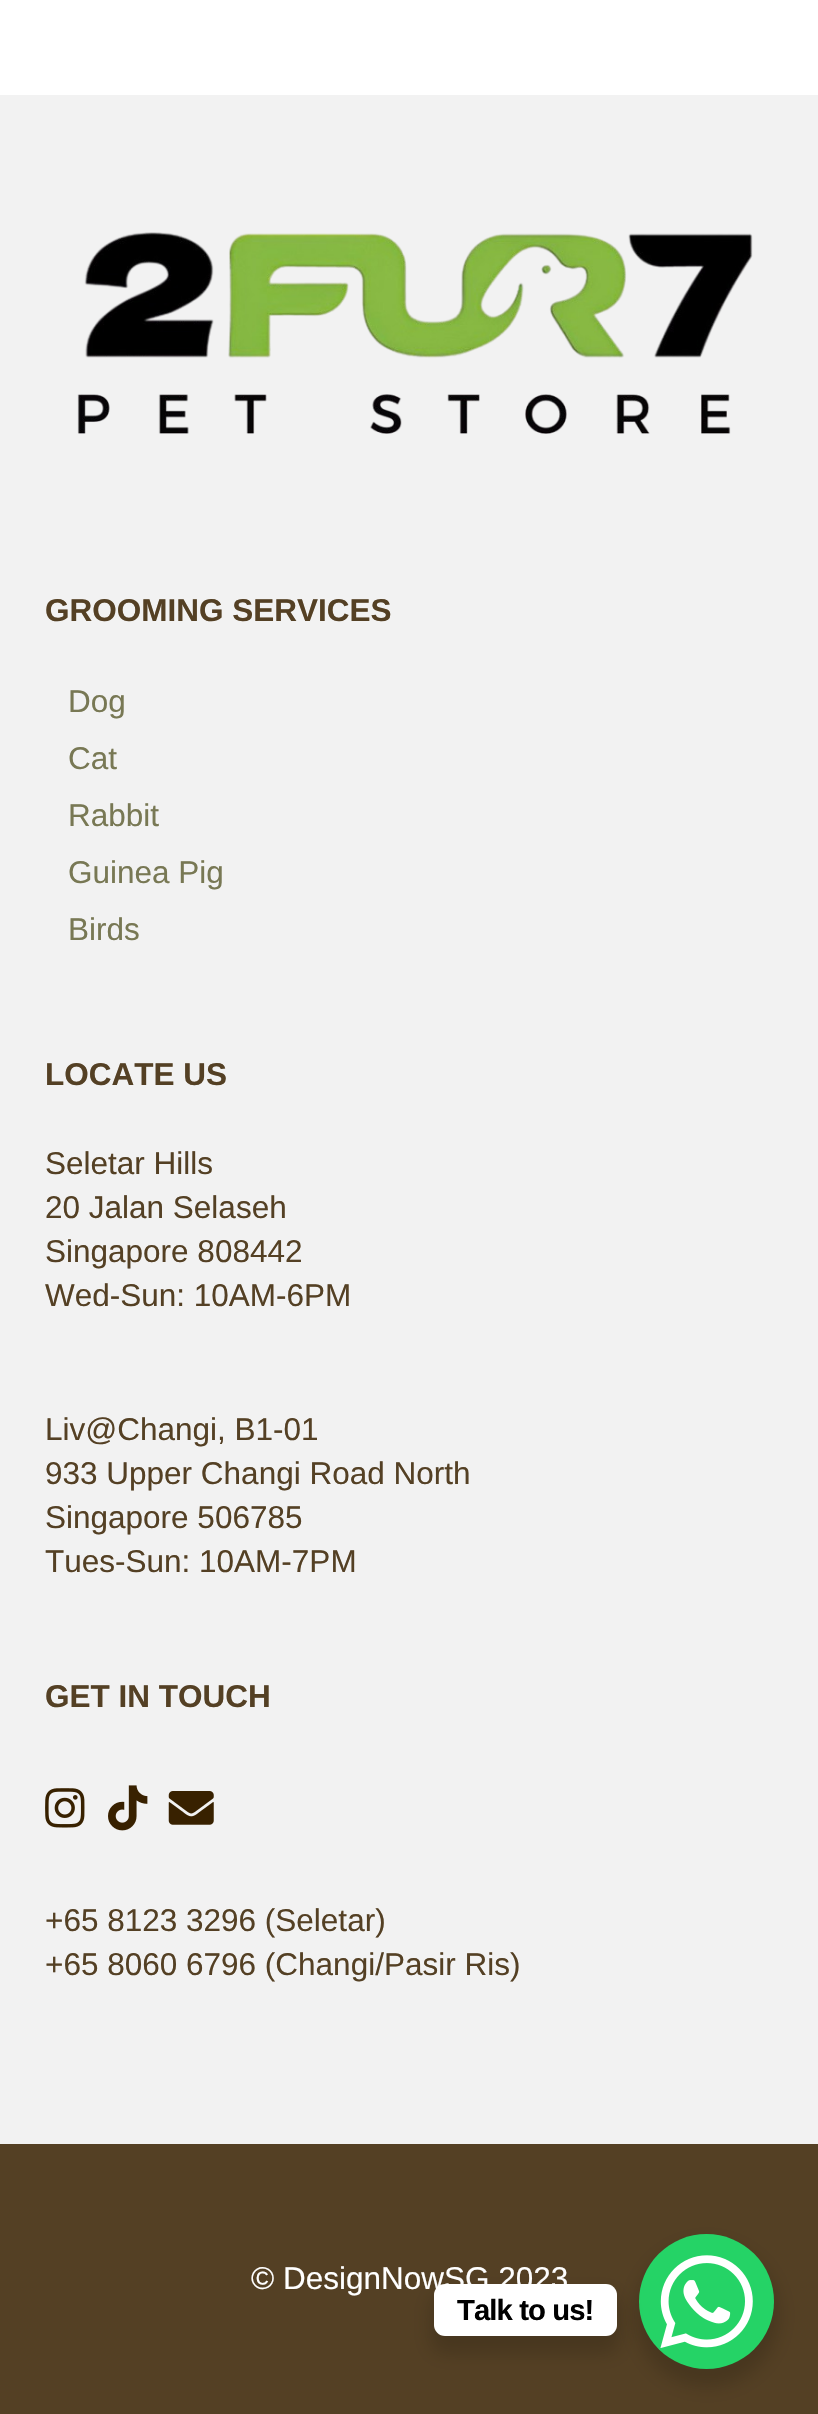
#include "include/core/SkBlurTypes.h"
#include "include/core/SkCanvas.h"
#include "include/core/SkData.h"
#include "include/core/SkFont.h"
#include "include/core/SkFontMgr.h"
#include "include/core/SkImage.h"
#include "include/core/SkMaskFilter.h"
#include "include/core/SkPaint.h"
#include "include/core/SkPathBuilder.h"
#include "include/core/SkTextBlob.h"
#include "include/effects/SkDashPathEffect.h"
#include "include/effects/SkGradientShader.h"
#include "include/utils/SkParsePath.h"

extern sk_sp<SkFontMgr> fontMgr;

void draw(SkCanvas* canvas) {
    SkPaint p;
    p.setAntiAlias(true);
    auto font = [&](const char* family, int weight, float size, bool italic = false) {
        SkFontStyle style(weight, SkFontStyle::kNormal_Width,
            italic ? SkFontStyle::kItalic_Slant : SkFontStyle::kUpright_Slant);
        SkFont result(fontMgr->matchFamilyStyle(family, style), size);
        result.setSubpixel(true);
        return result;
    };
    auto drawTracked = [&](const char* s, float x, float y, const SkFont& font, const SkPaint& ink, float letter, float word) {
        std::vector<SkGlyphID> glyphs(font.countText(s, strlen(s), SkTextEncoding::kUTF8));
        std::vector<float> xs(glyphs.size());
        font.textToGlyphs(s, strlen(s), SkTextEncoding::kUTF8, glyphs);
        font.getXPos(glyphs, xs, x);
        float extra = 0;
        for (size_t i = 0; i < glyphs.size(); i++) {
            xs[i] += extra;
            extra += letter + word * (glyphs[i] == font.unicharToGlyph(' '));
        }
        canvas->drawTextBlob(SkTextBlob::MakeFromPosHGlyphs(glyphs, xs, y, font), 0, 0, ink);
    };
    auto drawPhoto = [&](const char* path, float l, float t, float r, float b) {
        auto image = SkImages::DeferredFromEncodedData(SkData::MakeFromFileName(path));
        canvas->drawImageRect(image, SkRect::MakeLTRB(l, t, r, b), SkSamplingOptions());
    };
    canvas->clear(0xFFF2F2F2);
    p.setColor(0xFFFFFFFF);
    canvas->drawRect(SkRect::MakeLTRB(0, 0, 818, 95), p);
    drawPhoto("media/1.png", 77, 232, 753, 434);
    auto font1 = font("Liberation Sans", 700, 31.5f);
    p.setColor(0xFF544024);
    canvas->drawString("GROOMING SERVICES", 45, 621, font1, p);
    auto font2 = font("Liberation Sans", 400, 31.5f);
    p.setColor(0xFF787854);
    {
        const struct { const char* s; float x, y; } items[] = {
            {"Dog", 68, 712},
            {"Cat", 68, 769},
            {"Rabbit", 68, 826},
            {"Guinea Pig", 68, 883},
            {"Birds", 68, 940},
        };
        for (auto [s, x, y] : items) {
            canvas->drawString(s, x, y, font2, p);
        }
    }
    p.setColor(0xFF544024);
    canvas->drawString("LOCATE US", 45, 1085, font1, p);
    {
        const struct { const char* s; float x, y; } items[] = {
            {"Seletar Hills", 45, 1174},
            {"20 Jalan Selaseh", 45, 1218},
            {"Singapore 808442", 45, 1262},
            {"Wed-Sun: 10AM-6PM", 45, 1306},
            {"Liv@Changi, B1-01", 45, 1440},
            {"933 Upper Changi Road North", 45, 1484},
            {"Singapore 506785", 45, 1528},
            {"Tues-Sun: 10AM-7PM", 45, 1572},
        };
        for (auto [s, x, y] : items) {
            canvas->drawString(s, x, y, font2, p);
        }
    }
    canvas->drawString("GET IN TOUCH", 45, 1707, font1, p);
    drawPhoto("media/2.png", 45, 1788, 85, 1828);
    drawPhoto("media/3.png", 108, 1785, 148, 1831);
    drawPhoto("media/4.png", 168, 1791, 214, 1825);
    canvas->drawString("+65 8123 3296 (Seletar)", 45, 1931, font2, p);
    canvas->drawString("+65 8060 6796 (Changi/Pasir Ris)", 45, 1975, font2, p);
    canvas->drawRect(SkRect::MakeLTRB(0, 2144, 818, 2414), p);
    p.setColor(0xFFFFFFFF);
    canvas->drawString("© DesignNowSG 2023", 251, 2289, font2, p);
    p.setColor(0x26000000);
    p.setMaskFilter(SkMaskFilter::MakeBlur(kNormal_SkBlurStyle, 9));
    canvas->drawRoundRect(SkRect::MakeLTRB(635, 2243, 779, 2387), 72, 72, p);
    p.setMaskFilter(nullptr);
    p.setColor(0xFF25D366);
    canvas->drawCircle(706.5f, 2301.5f, 67.5f, p);
    p.setColor(0x26000000);
    p.setMaskFilter(SkMaskFilter::MakeBlur(kNormal_SkBlurStyle, 9));
    canvas->drawRoundRect(SkRect::MakeLTRB(430, 2293, 621, 2354), 16, 16, p);
    p.setMaskFilter(nullptr);
    p.setColor(0xFFFFFFFF);
    canvas->drawRoundRect(SkRect::MakeLTRB(434, 2284, 617, 2336), 11, 11, p);
    auto font3 = font("Liberation Sans", 700, 29.25f);
    p.setColor(0xFF000000);
    drawTracked("Talk to us!", 457, 2320, font3, p, -0.9f, 0);
    drawPhoto("media/5.png", 660, 2255, 753, 2348);
}
